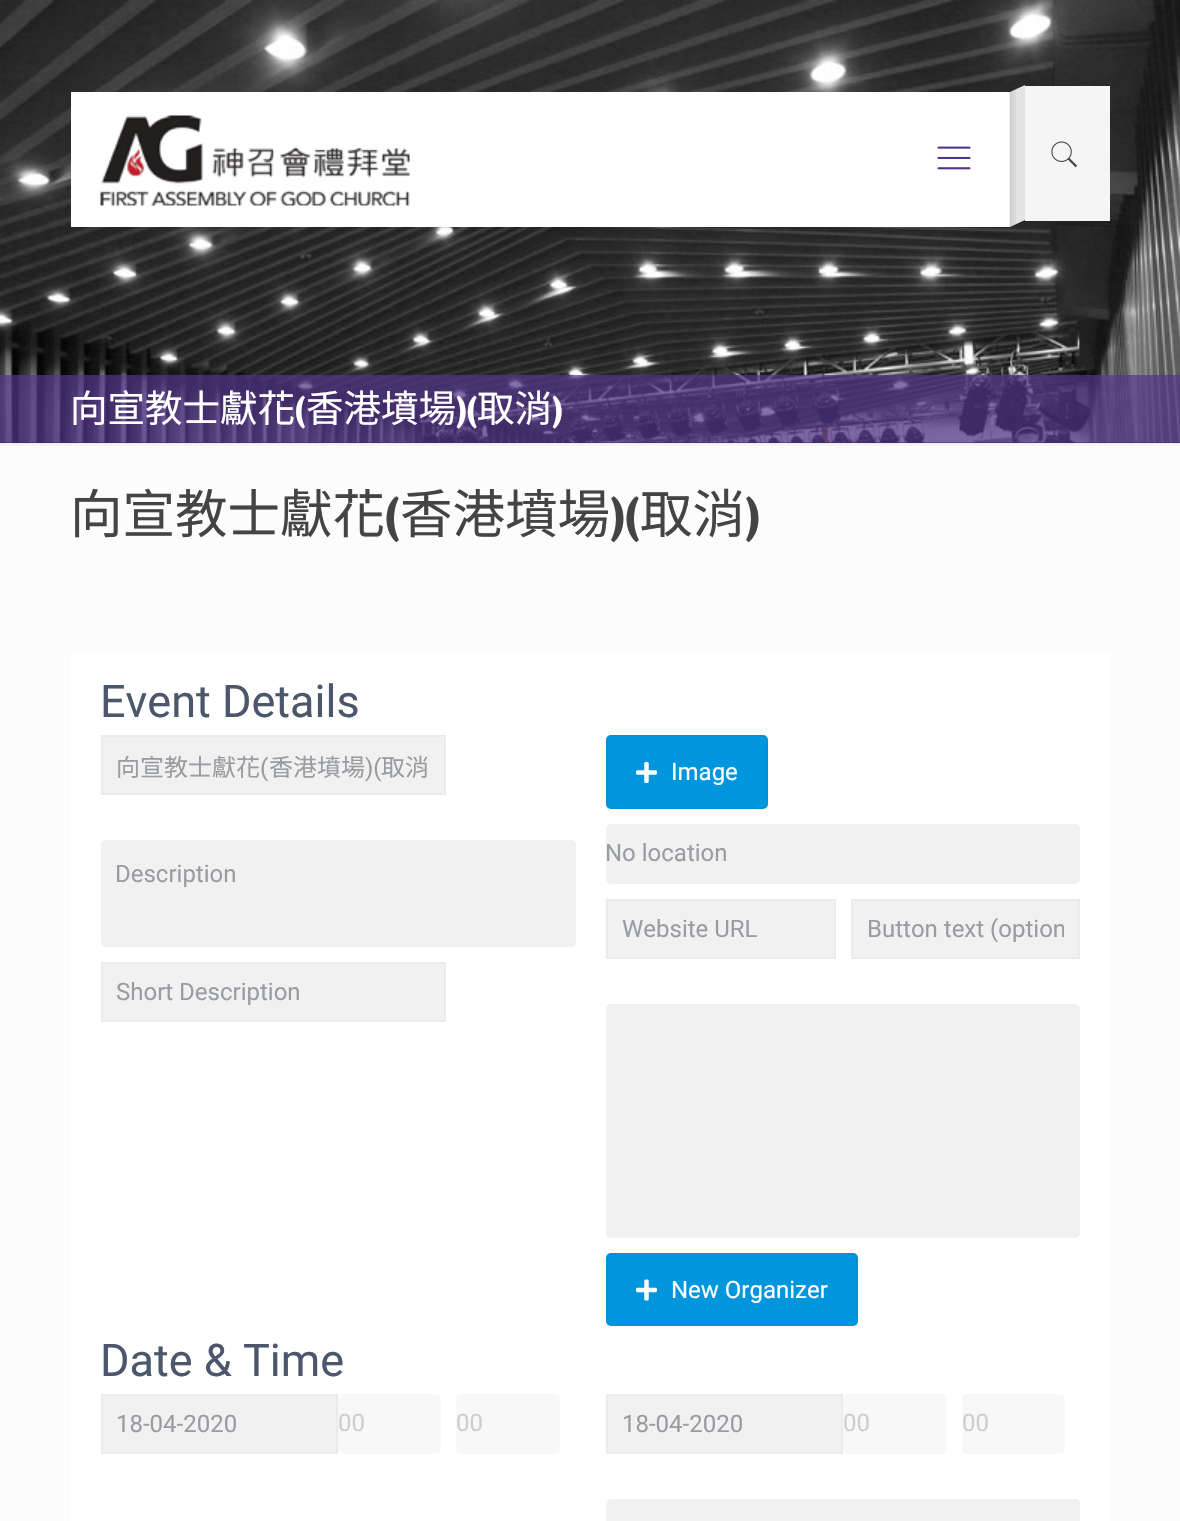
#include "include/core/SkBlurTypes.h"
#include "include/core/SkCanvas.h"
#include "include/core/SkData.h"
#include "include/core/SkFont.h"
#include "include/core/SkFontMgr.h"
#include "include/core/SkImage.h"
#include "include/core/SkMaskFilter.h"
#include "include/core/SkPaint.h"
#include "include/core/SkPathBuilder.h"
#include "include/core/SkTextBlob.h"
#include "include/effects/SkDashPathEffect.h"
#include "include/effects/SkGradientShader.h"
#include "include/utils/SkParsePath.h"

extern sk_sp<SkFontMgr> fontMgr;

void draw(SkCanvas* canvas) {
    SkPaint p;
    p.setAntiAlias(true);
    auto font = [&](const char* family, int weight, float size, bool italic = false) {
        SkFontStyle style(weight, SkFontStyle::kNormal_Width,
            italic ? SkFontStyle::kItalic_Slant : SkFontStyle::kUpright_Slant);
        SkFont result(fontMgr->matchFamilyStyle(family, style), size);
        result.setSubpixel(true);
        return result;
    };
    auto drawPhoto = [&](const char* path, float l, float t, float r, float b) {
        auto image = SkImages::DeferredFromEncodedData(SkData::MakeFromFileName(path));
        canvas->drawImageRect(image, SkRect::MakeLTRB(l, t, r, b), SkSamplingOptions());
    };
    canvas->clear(0xFFFCFCFC);
    p.setColor(0xFF231F2B);
    canvas->drawRect(SkRect::MakeLTRB(0, 442, 1180, 443), p);
    drawPhoto("media/1.png", 0, 0, 1180, 443);
    p.setColor(0xFFFFFFFF);
    canvas->drawRect(SkRect::MakeLTRB(71, 92, 1010, 227), p);
    drawPhoto("media/2.png", 100, 115, 410, 206);
    drawPhoto("media/3.png", 937, 146, 971, 170);
    p.setColor(0xFFF5F5F5);
    canvas->drawRect(SkRect::MakeLTRB(1025, 86, 1110, 221), p);
    p.setColor(0xFFE3E3E3);
    canvas->drawPath(SkPathBuilder().moveTo(1010, 92).lineTo(1025, 85).lineTo(1025, 220).lineTo(1010, 227).close().detach(), p);
    drawPhoto("media/4.png", 1009, 90, 1016, 227);
    drawPhoto("media/5.png", 1051, 141, 1078, 168);
    p.setColor(0xB353348B);
    canvas->drawRect(SkRect::MakeLTRB(0, 375, 1180, 443), p);
    auto font1 = font("Noto Sans CJK TC", 400, 37.5f);
    p.setColor(0xFFFFFFFF);
    canvas->drawString("向宣教士獻花", 70, 422, font1, p);
    auto font2 = font("Patua One", 400, 37.5f);
    canvas->drawString("(", 295, 422, font2, p);
    canvas->drawString("香港墳場", 306, 422, font1, p);
    canvas->drawString(")(", 456, 422, font2, p);
    canvas->drawString("取消", 477, 422, font1, p);
    canvas->drawString(")", 552, 422, font2, p);
    drawPhoto("media/6.png", 0, 442, 1180, 446);
    auto font3 = font("Noto Sans CJK TC", 400, 52.5f);
    p.setColor(0xFF444444);
    canvas->drawString("向宣教士獻花", 70, 533, font3, p);
    auto font4 = font("Patua One", 400, 52.5f);
    canvas->drawString("(", 385, 533, font4, p);
    canvas->drawString("香港墳場", 400, 533, font3, p);
    canvas->drawString(")(", 610, 533, font4, p);
    canvas->drawString("取消", 640, 533, font3, p);
    canvas->drawString(")", 745, 533, font4, p);
    p.setColor(0xFFFFFFFF);
    canvas->drawRect(SkRect::MakeLTRB(71, 653, 1110, 1521), p);
    auto font5 = font("Roboto", 400, 45);
    p.setColor(0xFF4D576C);
    canvas->drawString("Event Details", 100, 717, font5, p);
    p.setColor(0xFFF1F1F1);
    canvas->drawRect(SkRect::MakeLTRB(102, 736, 445, 794), p);
    p.setStyle(SkPaint::kStroke_Style);
    p.setStrokeWidth(2);
    p.setColor(0xFFEBEBEB);
    canvas->drawRect(SkRect::MakeLTRB(102, 736, 445, 794), p);
    auto font6 = font("Noto Sans CJK TC", 400, 24);
    p.setStyle(SkPaint::kFill_Style);
    p.setColor(0xFF999DA2);
    canvas->drawString("向宣教士獻花", 116, 776, font6, p);
    auto font7 = font("Roboto", 400, 24);
    canvas->drawString("(", 260, 776, font7, p);
    canvas->drawString("香港墳場", 269, 776, font6, p);
    canvas->drawString(")(", 365, 776, font7, p);
    canvas->drawString("取消", 381, 776, font6, p);
    p.setColor(0xFFF1F1F1);
    canvas->drawRoundRect(SkRect::MakeLTRB(101, 840, 576, 947), 5, 5, p);
    p.setColor(0xFF999DA2);
    canvas->drawString("Description", 115, 882, font7, p);
    p.setColor(0xFFF1F1F1);
    canvas->drawRect(SkRect::MakeLTRB(102, 963, 445, 1021), p);
    p.setStyle(SkPaint::kStroke_Style);
    p.setColor(0xFFEBEBEB);
    canvas->drawRect(SkRect::MakeLTRB(102, 963, 445, 1021), p);
    p.setStyle(SkPaint::kFill_Style);
    p.setColor(0xFF999DA2);
    canvas->drawString("Short Description", 116, 1000, font7, p);
    p.setColor(0xFF0096DD);
    canvas->drawRoundRect(SkRect::MakeLTRB(606, 735, 768, 809), 5, 5, p);
    p.setStyle(SkPaint::kStroke_Style);
    p.setColor(0x08000000);
    canvas->drawRect(SkRect::MakeLTRB(607, 736, 767, 808), p);
    drawPhoto("media/7.png", 636, 762, 657, 783);
    p.setStyle(SkPaint::kFill_Style);
    p.setColor(0xFFFFFFFF);
    canvas->drawString("Image", 671, 780, font7, p);
    p.setColor(0xFFF1F1F1);
    canvas->drawRoundRect(SkRect::MakeLTRB(606, 824, 1080, 884), 5, 5, p);
    p.setColor(0xFF999DA2);
    canvas->drawString("No location", 605, 861, font7, p);
    p.setColor(0xFFF1F1F1);
    canvas->drawRect(SkRect::MakeLTRB(607, 900, 835, 958), p);
    p.setStyle(SkPaint::kStroke_Style);
    p.setColor(0xFFEBEBEB);
    canvas->drawRect(SkRect::MakeLTRB(607, 900, 835, 958), p);
    p.setStyle(SkPaint::kFill_Style);
    p.setColor(0xFF999DA2);
    canvas->drawString("Website URL", 622, 937, font7, p);
    p.setColor(0xFFF1F1F1);
    canvas->drawRect(SkRect::MakeLTRB(852, 900, 1079, 958), p);
    p.setStyle(SkPaint::kStroke_Style);
    p.setColor(0xFFEBEBEB);
    canvas->drawRect(SkRect::MakeLTRB(852, 900, 1079, 958), p);
    canvas->save();
    canvas->clipRect(SkRect::MakeLTRB(867, 915, 1064, 944));
    p.setStyle(SkPaint::kFill_Style);
    p.setColor(0xFF999DA2);
    canvas->drawString("Button text (option", 867, 937, font7, p);
    canvas->restore();
    p.setColor(0xFFF1F1F1);
    canvas->drawRoundRect(SkRect::MakeLTRB(606, 1004, 1080, 1238), 5, 5, p);
    p.setColor(0xFF0096DD);
    canvas->drawRoundRect(SkRect::MakeLTRB(606, 1253, 858, 1326), 5, 5, p);
    p.setStyle(SkPaint::kStroke_Style);
    p.setColor(0x08000000);
    canvas->drawRect(SkRect::MakeLTRB(607, 1254, 857, 1325), p);
    drawPhoto("media/8.png", 636, 1279, 657, 1301);
    p.setStyle(SkPaint::kFill_Style);
    p.setColor(0xFFFFFFFF);
    canvas->drawString("New Organizer", 671, 1298, font7, p);
    p.setColor(0xFF4D576C);
    canvas->drawString("Date & Time", 100, 1376, font5, p);
    p.setColor(0xFFF1F1F1);
    canvas->drawRect(SkRect::MakeLTRB(102, 1395, 337, 1453), p);
    p.setStyle(SkPaint::kStroke_Style);
    p.setColor(0xFFEBEBEB);
    canvas->drawRect(SkRect::MakeLTRB(102, 1395, 337, 1453), p);
    p.setStyle(SkPaint::kFill_Style);
    p.setColor(0xFF999DA2);
    canvas->drawString("18-04-2020", 116, 1432, font7, p);
    p.setColor(0xFFF8F8F8);
    canvas->drawRoundRect(SkRect::MakeLTRB(338, 1394, 441, 1454), 5, 5, p);
    p.setColor(0xFFCCCED1);
    canvas->drawString("00", 338, 1431, font7, p);
    p.setColor(0xFFF8F8F8);
    canvas->drawRoundRect(SkRect::MakeLTRB(456, 1394, 560, 1454), 5, 5, p);
    p.setColor(0xFFCCCED1);
    canvas->drawString("00", 456, 1431, font7, p);
    p.setColor(0xFFF1F1F1);
    canvas->drawRect(SkRect::MakeLTRB(607, 1395, 842, 1453), p);
    p.setStyle(SkPaint::kStroke_Style);
    p.setColor(0xFFEBEBEB);
    canvas->drawRect(SkRect::MakeLTRB(607, 1395, 842, 1453), p);
    p.setStyle(SkPaint::kFill_Style);
    p.setColor(0xFF999DA2);
    canvas->drawString("18-04-2020", 622, 1432, font7, p);
    p.setColor(0xFFF8F8F8);
    canvas->drawRoundRect(SkRect::MakeLTRB(843, 1394, 947, 1454), 5, 5, p);
    p.setColor(0xFFCCCED1);
    canvas->drawString("00", 843, 1431, font7, p);
    p.setColor(0xFFF8F8F8);
    canvas->drawRoundRect(SkRect::MakeLTRB(962, 1394, 1065, 1454), 5, 5, p);
    p.setColor(0xFFCCCED1);
    canvas->drawString("00", 962, 1431, font7, p);
    p.setColor(0xFFF1F1F1);
    canvas->drawRoundRect(SkRect::MakeLTRB(606, 1499, 1080, 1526), 5, 5, p);
}
